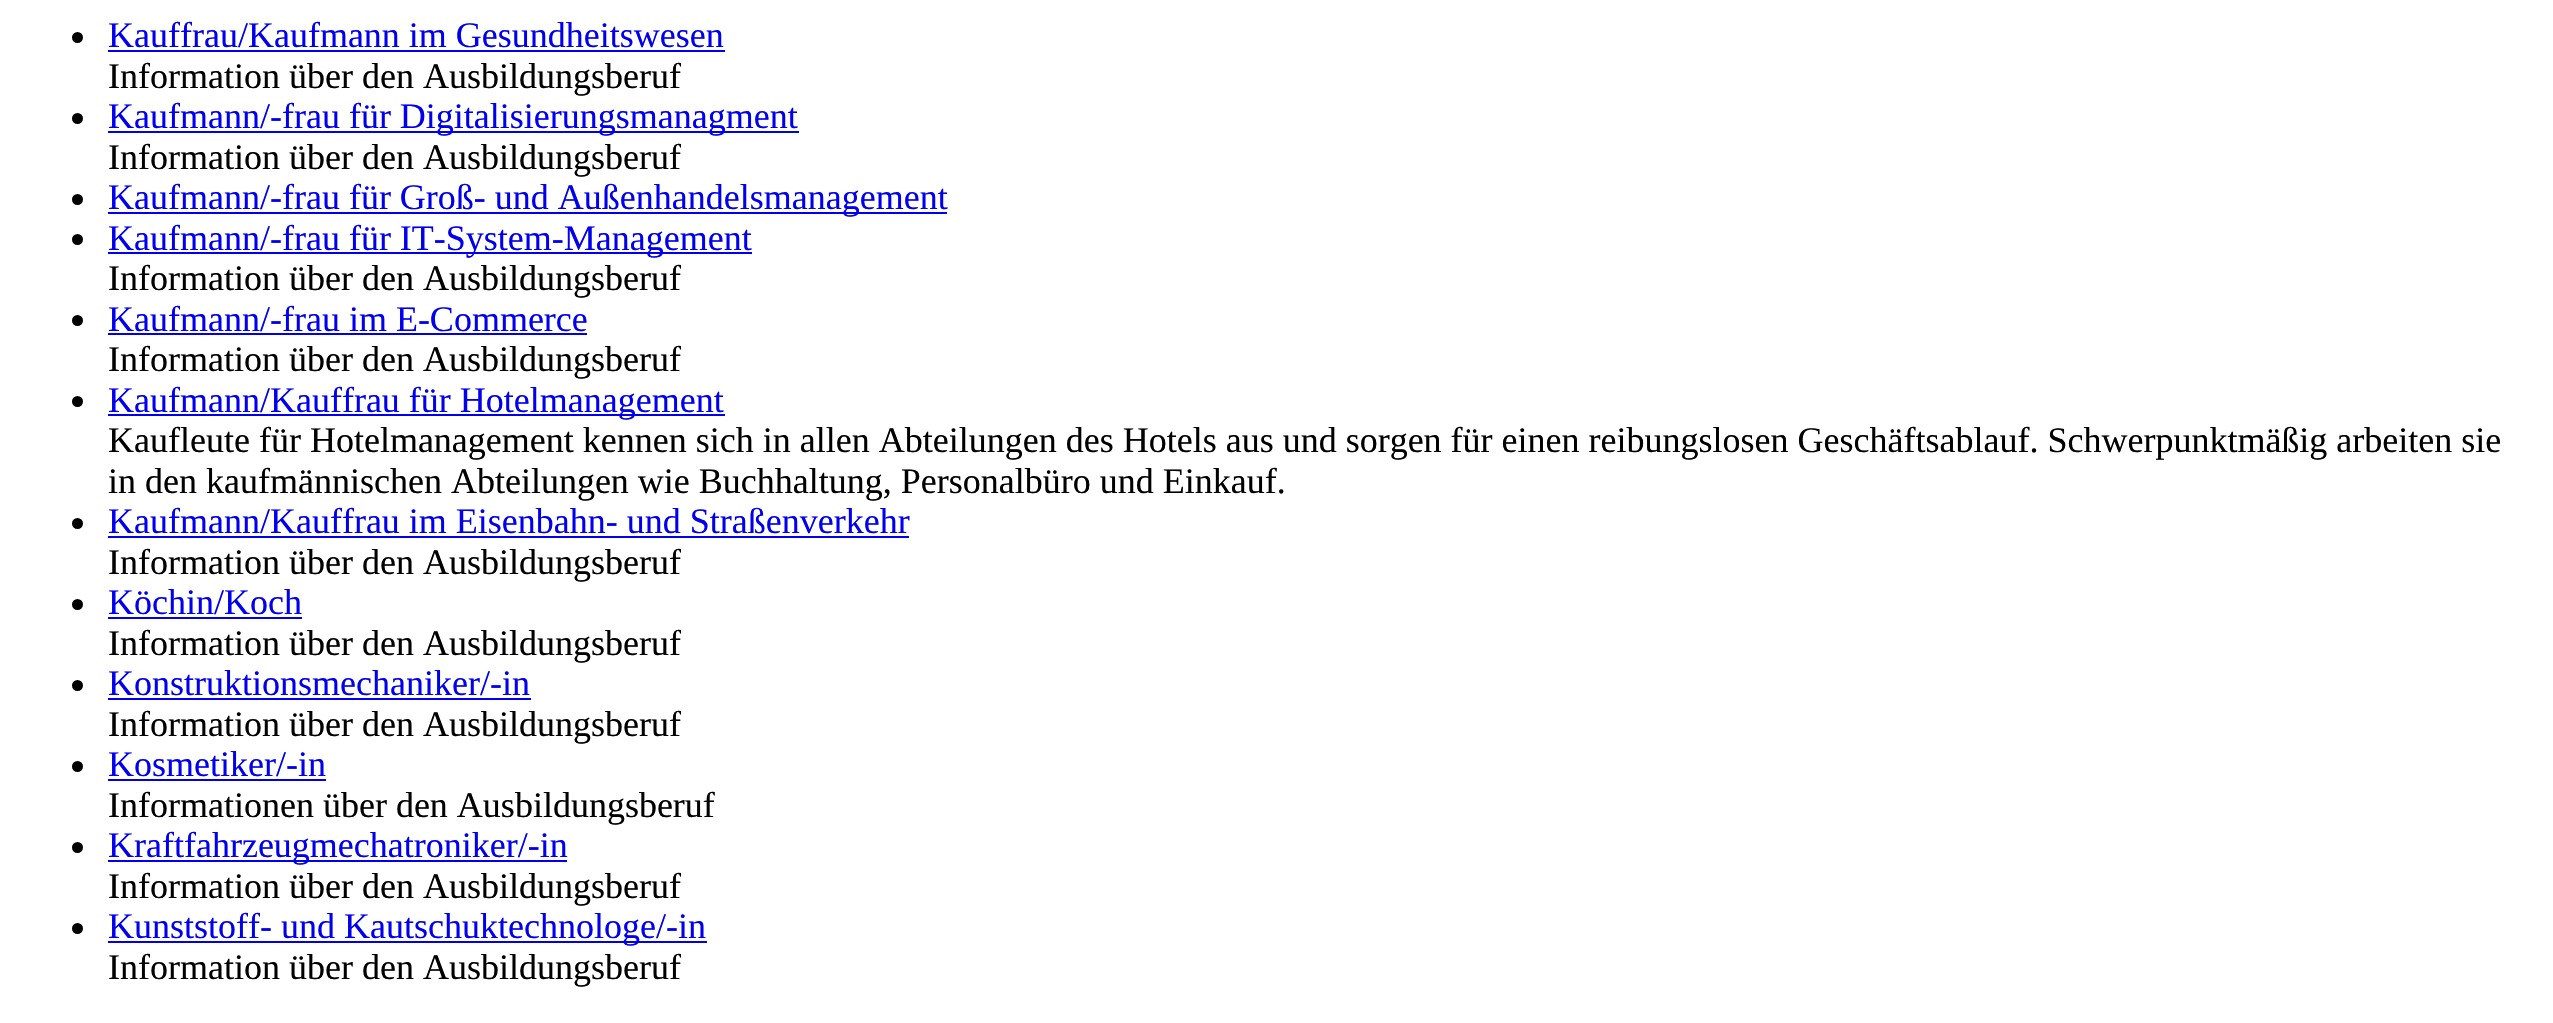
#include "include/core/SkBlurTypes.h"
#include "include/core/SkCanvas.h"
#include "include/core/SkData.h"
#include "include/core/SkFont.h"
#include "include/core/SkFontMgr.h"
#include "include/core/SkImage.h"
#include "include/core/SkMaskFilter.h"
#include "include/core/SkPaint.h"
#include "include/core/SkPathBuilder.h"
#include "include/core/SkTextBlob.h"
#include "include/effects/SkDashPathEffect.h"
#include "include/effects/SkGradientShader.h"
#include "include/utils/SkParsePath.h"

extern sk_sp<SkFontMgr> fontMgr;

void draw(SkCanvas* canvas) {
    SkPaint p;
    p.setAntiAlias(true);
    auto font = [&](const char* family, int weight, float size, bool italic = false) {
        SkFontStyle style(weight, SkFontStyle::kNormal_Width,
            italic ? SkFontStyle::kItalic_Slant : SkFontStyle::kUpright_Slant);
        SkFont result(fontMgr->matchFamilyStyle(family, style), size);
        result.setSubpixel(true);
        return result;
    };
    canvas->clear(0xFFFFFFFF);
    p.setColor(0xFF000000);
    canvas->drawCircle(77.5f, 37.5f, 5.5f, p);
    auto font1 = font("Liberation Serif", 400, 36);
    p.setColor(0xFF0000EE);
    canvas->drawString("Kauffrau/Kaufmann im Gesundheitswesen", 108, 47, font1, p);
    canvas->drawRect(SkRect::MakeLTRB(108, 50, 725, 52), p);
    p.setColor(0xFF000000);
    canvas->drawString("Information über den Ausbildungsberuf", 108, 88, font1, p);
    canvas->drawCircle(77.5f, 118.5f, 5.5f, p);
    p.setColor(0xFF0000EE);
    canvas->drawRect(SkRect::MakeLTRB(108, 131, 799, 133), p);
    canvas->drawString("Kaufmann/-frau für Digitalisierungsmanagment", 108, 128, font1, p);
    p.setColor(0xFF000000);
    canvas->drawString("Information über den Ausbildungsberuf", 108, 169, font1, p);
    canvas->drawCircle(77.5f, 199.5f, 5.5f, p);
    p.setColor(0xFF0000EE);
    canvas->drawRect(SkRect::MakeLTRB(108, 212, 947, 214), p);
    canvas->drawString("Kaufmann/-frau für Groß- und Außenhandelsmanagement", 108, 209, font1, p);
    p.setColor(0xFF000000);
    canvas->drawCircle(77.5f, 239.5f, 5.5f, p);
    p.setColor(0xFF0000EE);
    canvas->drawRect(SkRect::MakeLTRB(108, 252, 752, 254), p);
    canvas->drawString("Kaufmann/-frau für IT-System-Management", 108, 250, font1, p);
    p.setColor(0xFF000000);
    canvas->drawString("Information über den Ausbildungsberuf", 108, 290, font1, p);
    canvas->drawCircle(77.5f, 320.5f, 5.5f, p);
    p.setColor(0xFF0000EE);
    canvas->drawString("Kaufmann/-frau im E-Commerce", 108, 331, font1, p);
    canvas->drawRect(SkRect::MakeLTRB(108, 333, 587, 335), p);
    p.setColor(0xFF000000);
    canvas->drawString("Information über den Ausbildungsberuf", 108, 371, font1, p);
    canvas->drawCircle(77.5f, 401.5f, 5.5f, p);
    p.setColor(0xFF0000EE);
    canvas->drawRect(SkRect::MakeLTRB(108, 414, 725, 416), p);
    canvas->drawString("Kaufmann/Kauffrau für Hotelmanagement", 108, 412, font1, p);
    p.setColor(0xFF000000);
    canvas->drawString("Kaufleute für Hotelmanagement kennen sich in allen Abteilungen des Hotels aus und sorgen für einen reibungslosen Geschäftsablauf. Schwerpunktmäßig arbeiten sie", 108, 452, font1, p);
    canvas->drawString("in den kaufmännischen Abteilungen wie Buchhaltung, Personalbüro und Einkauf.", 108, 493, font1, p);
    canvas->drawCircle(77.5f, 523.5f, 5.5f, p);
    p.setColor(0xFF0000EE);
    canvas->drawString("Kaufmann/Kauffrau im Eisenbahn- und Straßenverkehr", 108, 533, font1, p);
    canvas->drawRect(SkRect::MakeLTRB(108, 536, 909, 538), p);
    p.setColor(0xFF000000);
    canvas->drawString("Information über den Ausbildungsberuf", 108, 574, font1, p);
    canvas->drawCircle(77.5f, 604.5f, 5.5f, p);
    p.setColor(0xFF0000EE);
    canvas->drawString("Köchin/Koch", 108, 614, font1, p);
    canvas->drawRect(SkRect::MakeLTRB(108, 617, 302, 619), p);
    p.setColor(0xFF000000);
    canvas->drawString("Information über den Ausbildungsberuf", 108, 655, font1, p);
    canvas->drawCircle(77.5f, 685.5f, 5.5f, p);
    p.setColor(0xFF0000EE);
    canvas->drawString("Konstruktionsmechaniker/-in", 108, 695, font1, p);
    canvas->drawRect(SkRect::MakeLTRB(108, 698, 531, 700), p);
    p.setColor(0xFF000000);
    canvas->drawString("Information über den Ausbildungsberuf", 108, 736, font1, p);
    canvas->drawCircle(77.5f, 766.5f, 5.5f, p);
    p.setColor(0xFF0000EE);
    canvas->drawString("Kosmetiker/-in", 108, 776, font1, p);
    canvas->drawRect(SkRect::MakeLTRB(108, 779, 326, 781), p);
    p.setColor(0xFF000000);
    canvas->drawString("Informationen über den Ausbildungsberuf", 108, 817, font1, p);
    canvas->drawCircle(77.5f, 847.5f, 5.5f, p);
    p.setColor(0xFF0000EE);
    canvas->drawRect(SkRect::MakeLTRB(108, 860, 567, 862), p);
    canvas->drawString("Kraftfahrzeugmechatroniker/-in", 108, 857, font1, p);
    p.setColor(0xFF000000);
    canvas->drawString("Information über den Ausbildungsberuf", 108, 898, font1, p);
    canvas->drawCircle(77.5f, 928.5f, 5.5f, p);
    p.setColor(0xFF0000EE);
    canvas->drawRect(SkRect::MakeLTRB(108, 941, 707, 943), p);
    canvas->drawString("Kunststoff- und Kautschuktechnologe/-in", 108, 938, font1, p);
    p.setColor(0xFF000000);
    canvas->drawString("Information über den Ausbildungsberuf", 108, 979, font1, p);
}
